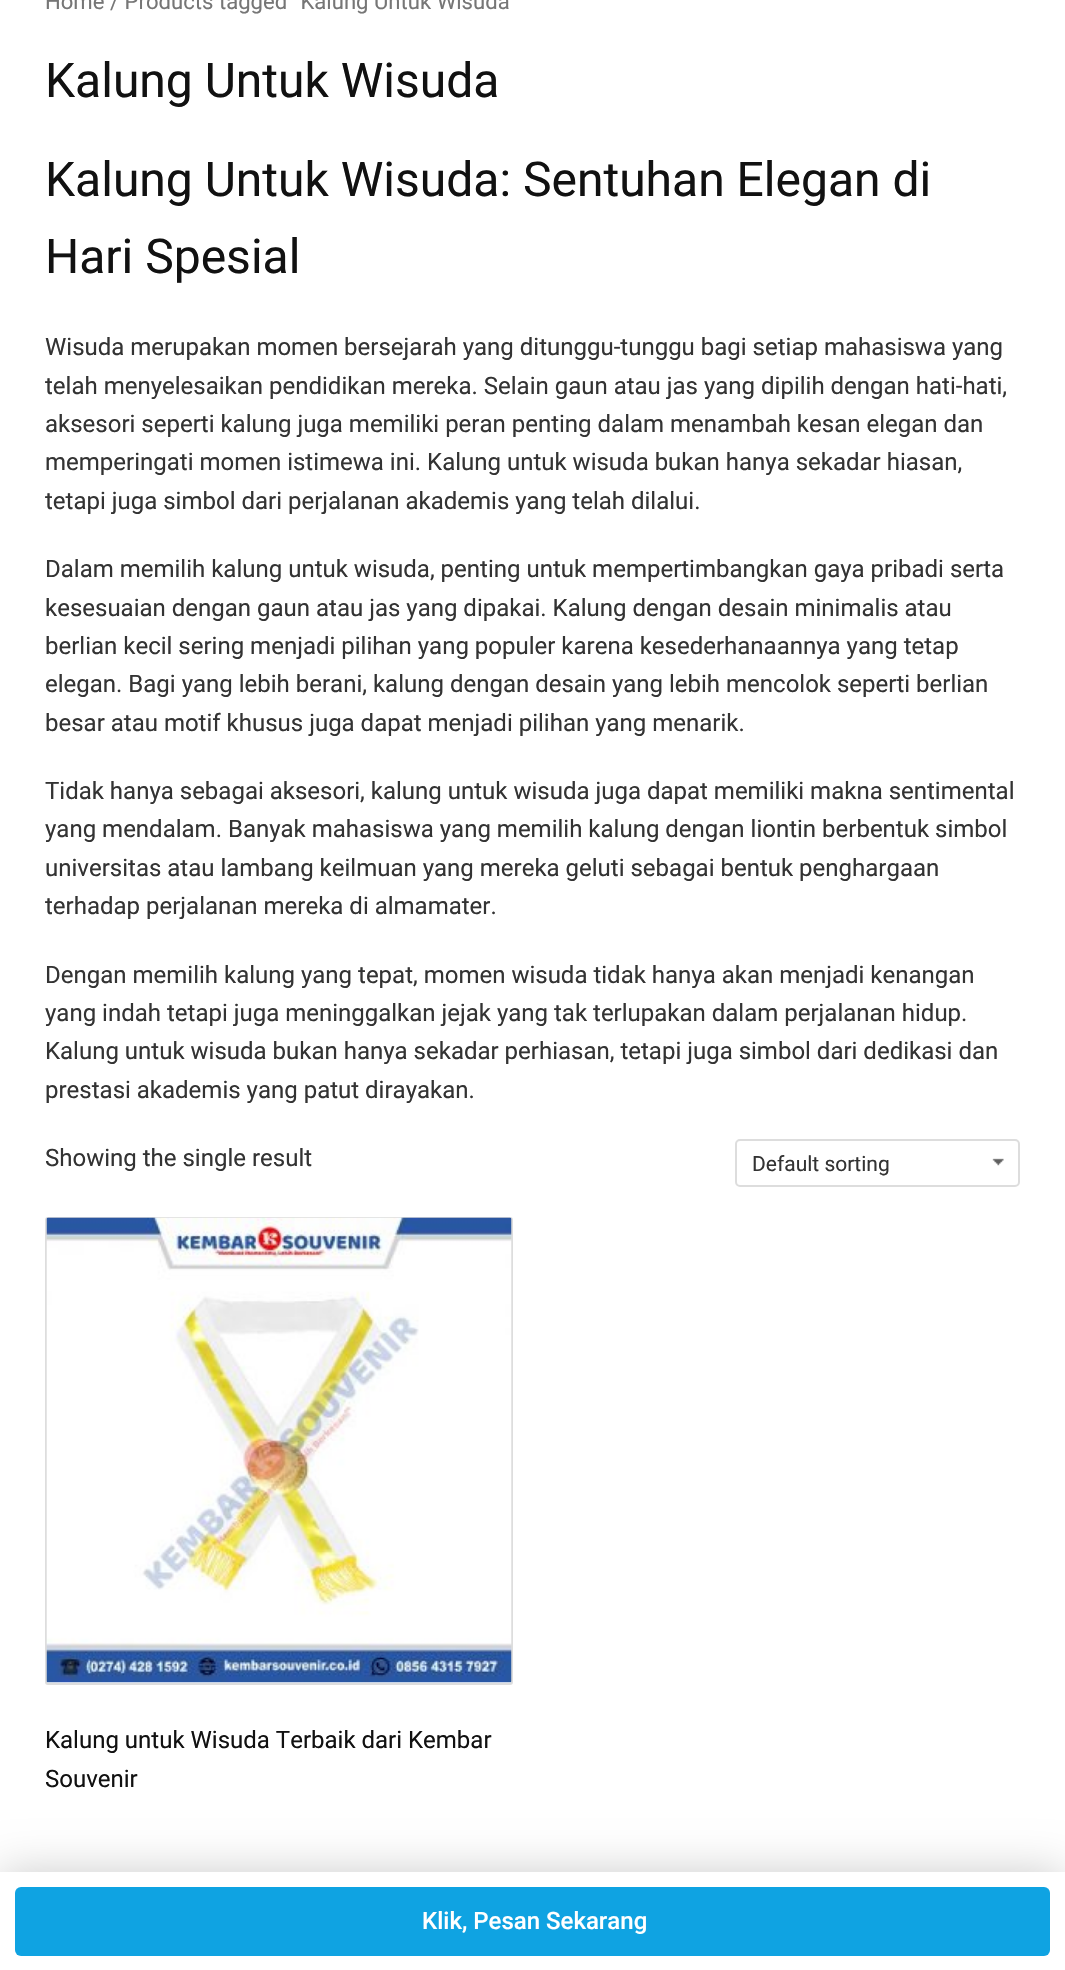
#include "include/core/SkBlurTypes.h"
#include "include/core/SkCanvas.h"
#include "include/core/SkData.h"
#include "include/core/SkFont.h"
#include "include/core/SkFontMgr.h"
#include "include/core/SkImage.h"
#include "include/core/SkMaskFilter.h"
#include "include/core/SkPaint.h"
#include "include/core/SkPathBuilder.h"
#include "include/core/SkTextBlob.h"
#include "include/effects/SkDashPathEffect.h"
#include "include/effects/SkGradientShader.h"
#include "include/utils/SkParsePath.h"

extern sk_sp<SkFontMgr> fontMgr;

void draw(SkCanvas* canvas) {
    SkPaint p;
    p.setAntiAlias(true);
    auto font = [&](const char* family, int weight, float size, bool italic = false) {
        SkFontStyle style(weight, SkFontStyle::kNormal_Width,
            italic ? SkFontStyle::kItalic_Slant : SkFontStyle::kUpright_Slant);
        SkFont result(fontMgr->matchFamilyStyle(family, style), size);
        result.setSubpixel(true);
        return result;
    };
    auto drawPhoto = [&](const char* path, float l, float t, float r, float b) {
        auto image = SkImages::DeferredFromEncodedData(SkData::MakeFromFileName(path));
        canvas->drawImageRect(image, SkRect::MakeLTRB(l, t, r, b), SkSamplingOptions());
    };
    canvas->clear(0xFFFFFFFF);
    auto font1 = font("Roboto", 400, 22.1f);
    p.setColor(0xFF767676);
    canvas->drawString("Home / Products tagged “Kalung Untuk Wisuda", 45, 9, font1, p);
    auto font2 = font("Roboto", 400, 48);
    p.setColor(0xFF111111);
    {
        const struct { const char* s; float x, y; } items[] = {
            {"Kalung Untuk Wisuda", 45, 97},
            {"Kalung Untuk Wisuda: Sentuhan Elegan di", 45, 196},
            {"Hari Spesial", 45, 273},
        };
        for (auto [s, x, y] : items) {
            canvas->drawString(s, x, y, font2, p);
        }
    }
    auto font3 = font("Roboto", 400, 24);
    p.setColor(0xFF333333);
    {
        const struct { const char* s; float x, y; } items[] = {
            {"Wisuda merupakan momen bersejarah yang ditunggu-tunggu bagi setiap mahasiswa yang", 45, 355},
            {"telah menyelesaikan pendidikan mereka. Selain gaun atau jas yang dipilih dengan hati-hati,", 45, 394},
            {"aksesori seperti kalung juga memiliki peran penting dalam menambah kesan elegan dan", 45, 432},
            {"memperingati momen istimewa ini. Kalung untuk wisuda bukan hanya sekadar hiasan,", 45, 470},
            {"tetapi juga simbol dari perjalanan akademis yang telah dilalui.", 45, 509},
            {"Dalam memilih kalung untuk wisuda, penting untuk mempertimbangkan gaya pribadi serta", 45, 577},
            {"kesesuaian dengan gaun atau jas yang dipakai. Kalung dengan desain minimalis atau", 45, 616},
            {"berlian kecil sering menjadi pilihan yang populer karena kesederhanaannya yang tetap", 45, 654},
            {"elegan. Bagi yang lebih berani, kalung dengan desain yang lebih mencolok seperti berlian", 45, 692},
            {"besar atau motif khusus juga dapat menjadi pilihan yang menarik.", 45, 731},
            {"Tidak hanya sebagai aksesori, kalung untuk wisuda juga dapat memiliki makna sentimental", 45, 799},
            {"yang mendalam. Banyak mahasiswa yang memilih kalung dengan liontin berbentuk simbol", 45, 837},
            {"universitas atau lambang keilmuan yang mereka geluti sebagai bentuk penghargaan", 45, 876},
            {"terhadap perjalanan mereka di almamater.", 45, 914},
            {"Dengan memilih kalung yang tepat, momen wisuda tidak hanya akan menjadi kenangan", 45, 983},
            {"yang indah tetapi juga meninggalkan jejak yang tak terlupakan dalam perjalanan hidup.", 45, 1021},
            {"Kalung untuk wisuda bukan hanya sekadar perhiasan, tetapi juga simbol dari dedikasi dan", 45, 1059},
            {"prestasi akademis yang patut dirayakan.", 45, 1098},
            {"Showing the single result", 45, 1166},
        };
        for (auto [s, x, y] : items) {
            canvas->drawString(s, x, y, font3, p);
        }
    }
    drawPhoto("media/1.png", 992, 1158, 1004, 1166);
    p.setStyle(SkPaint::kStroke_Style);
    p.setStrokeWidth(2);
    p.setColor(0xFFDDDDDD);
    canvas->drawRoundRect(SkRect::MakeLTRB(736, 1140, 1019, 1186), 4, 4, p);
    auto font4 = font("Roboto", 400, 21);
    p.setStyle(SkPaint::kFill_Style);
    p.setColor(0xFF333333);
    canvas->drawString("Default sorting", 752, 1171, font4, p);
    p.setStyle(SkPaint::kStroke_Style);
    p.setColor(0xFFDDDDDD);
    canvas->drawRoundRect(SkRect::MakeLTRB(46, 1218, 512, 1684), 2, 2, p);
    drawPhoto("media/2.png", 46, 1217, 512, 1683);
    p.setStyle(SkPaint::kFill_Style);
    p.setColor(0xFF111111);
    canvas->drawString("Kalung untuk Wisuda Terbaik dari Kembar", 45, 1748, font3, p);
    canvas->drawString("Souvenir", 45, 1787, font3, p);
    p.setColor(0x33000000);
    p.setMaskFilter(SkMaskFilter::MakeBlur(kNormal_SkBlurStyle, 22.5f));
    canvas->drawRect(SkRect::MakeLTRB(0, 1872, 1065, 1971), p);
    p.setMaskFilter(nullptr);
    p.setColor(0xFFFFFFFF);
    canvas->drawRect(SkRect::MakeLTRB(0, 1872, 1065, 1970), p);
    p.setColor(0xFF0FA3E2);
    canvas->drawRoundRect(SkRect::MakeLTRB(15, 1887, 1050, 1956), 6, 6, p);
    auto font5 = font("Roboto", 500, 24);
    p.setColor(0xFFFFFFFF);
    canvas->drawString("Klik, Pesan Sekarang", 422, 1929, font5, p);
}
